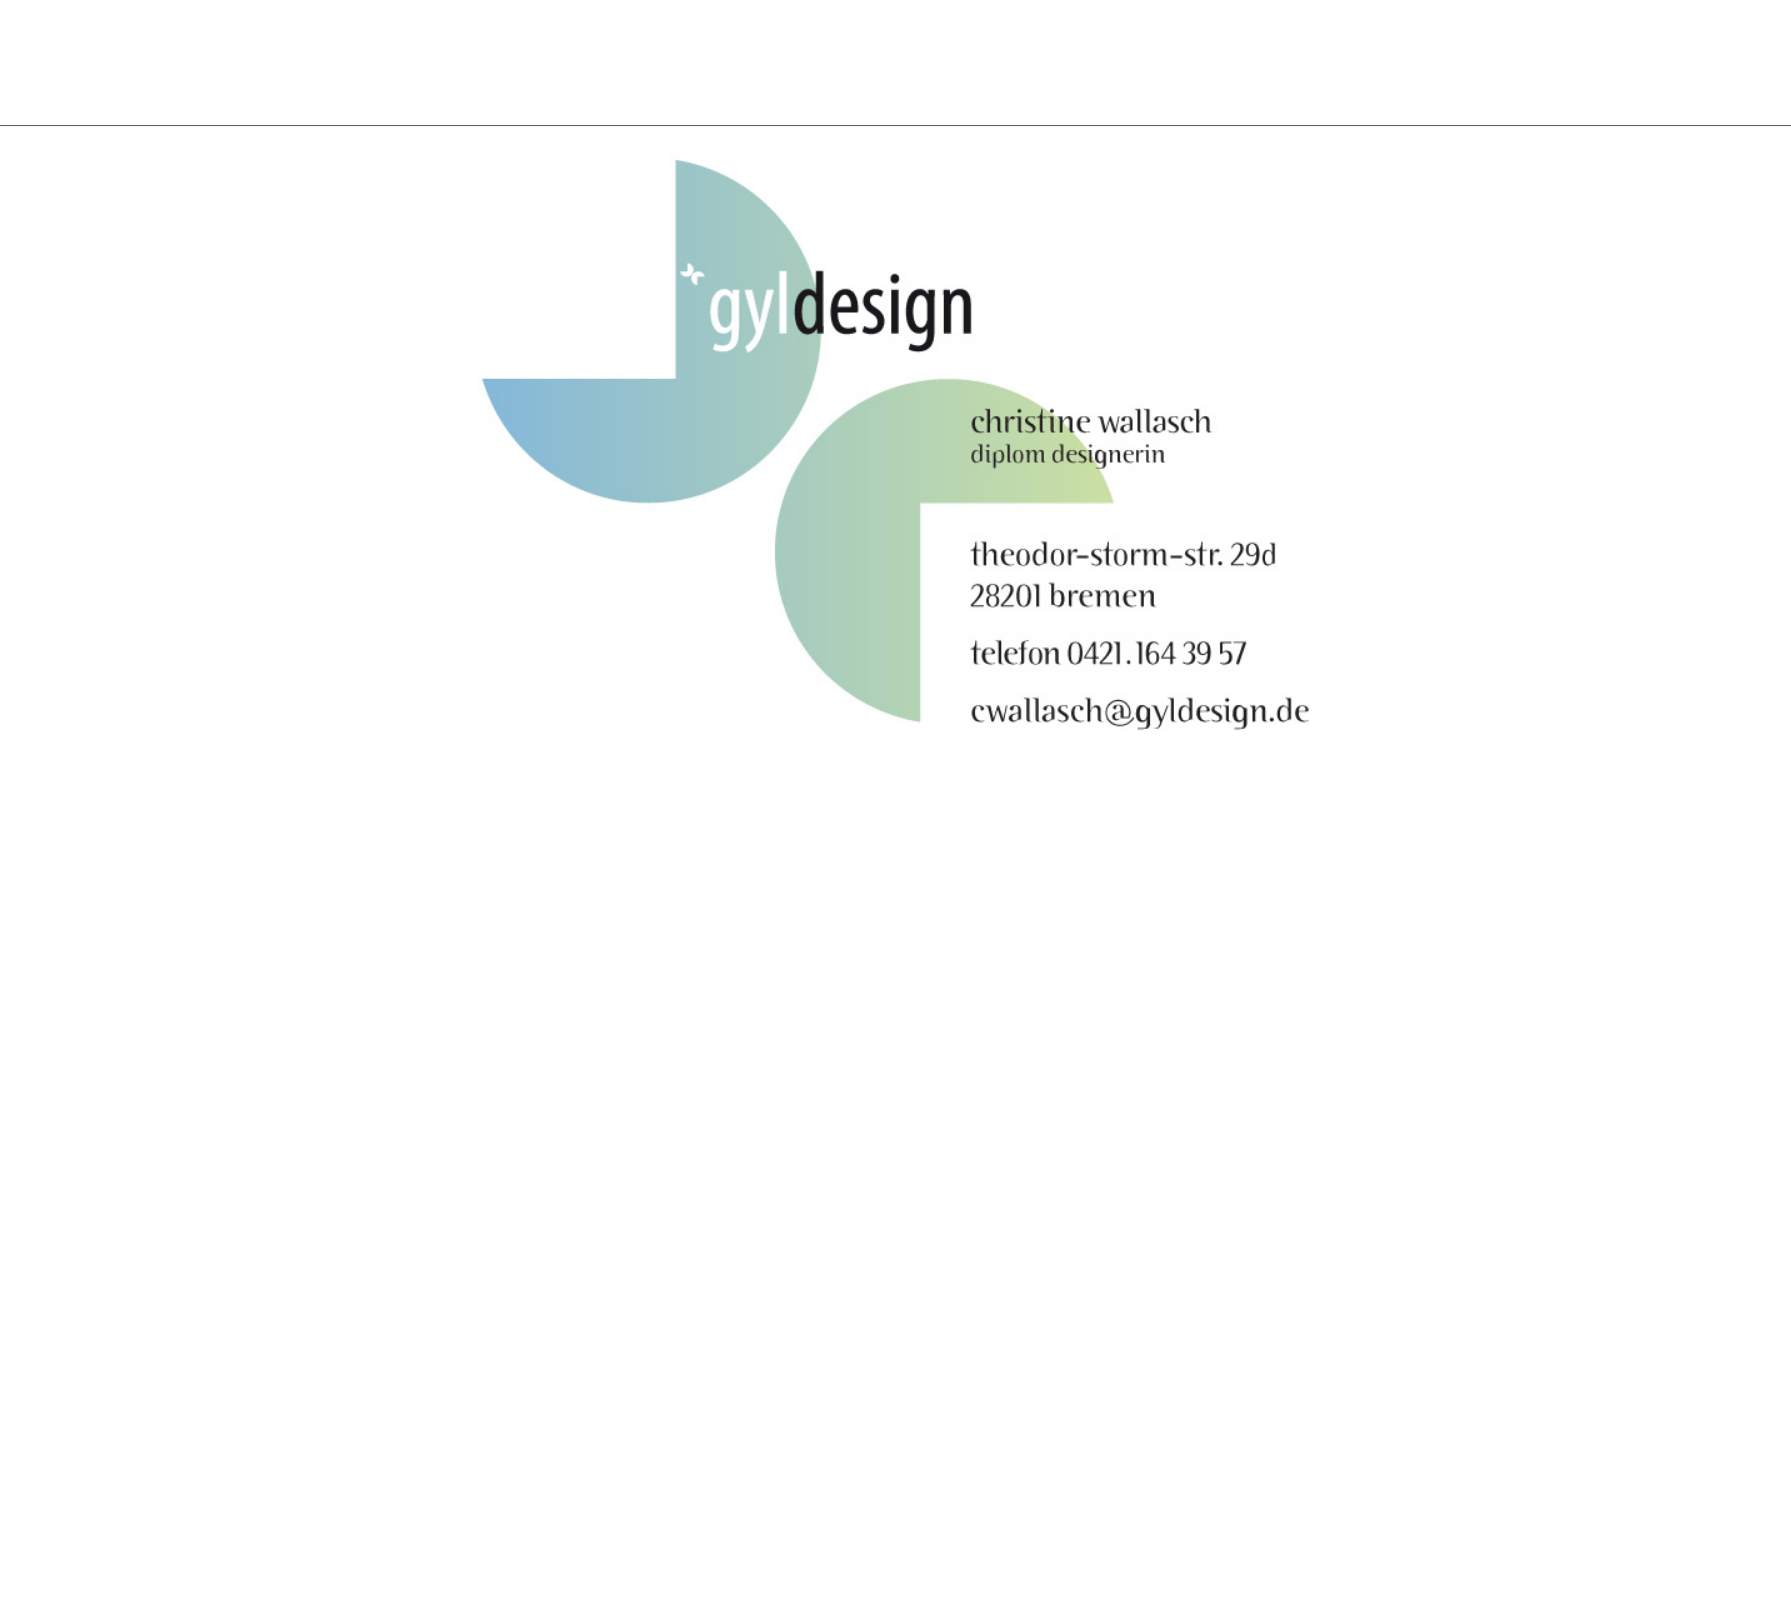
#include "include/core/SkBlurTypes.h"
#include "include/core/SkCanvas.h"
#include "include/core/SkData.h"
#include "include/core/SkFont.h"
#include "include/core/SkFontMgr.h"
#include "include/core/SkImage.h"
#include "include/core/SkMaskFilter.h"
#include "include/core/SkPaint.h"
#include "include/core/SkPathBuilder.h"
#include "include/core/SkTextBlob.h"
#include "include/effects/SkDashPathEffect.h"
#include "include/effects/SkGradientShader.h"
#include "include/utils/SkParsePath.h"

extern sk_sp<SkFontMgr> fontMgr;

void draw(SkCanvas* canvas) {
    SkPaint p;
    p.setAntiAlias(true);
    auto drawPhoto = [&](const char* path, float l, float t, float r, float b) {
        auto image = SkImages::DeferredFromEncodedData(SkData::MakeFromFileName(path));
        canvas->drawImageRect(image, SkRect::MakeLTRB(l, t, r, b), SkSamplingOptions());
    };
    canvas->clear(0xFFFFFFFF);
    p.setColor(0xFF636365);
    canvas->drawRect(SkRect::MakeLTRB(0, 125, 1791, 126), p);
    p.setColor(0xFFF4F4F4);
    canvas->drawRect(SkRect::MakeLTRB(0, 126, 1791, 127), p);
    drawPhoto("media/1.png", 478, 153, 1309, 731);
}
